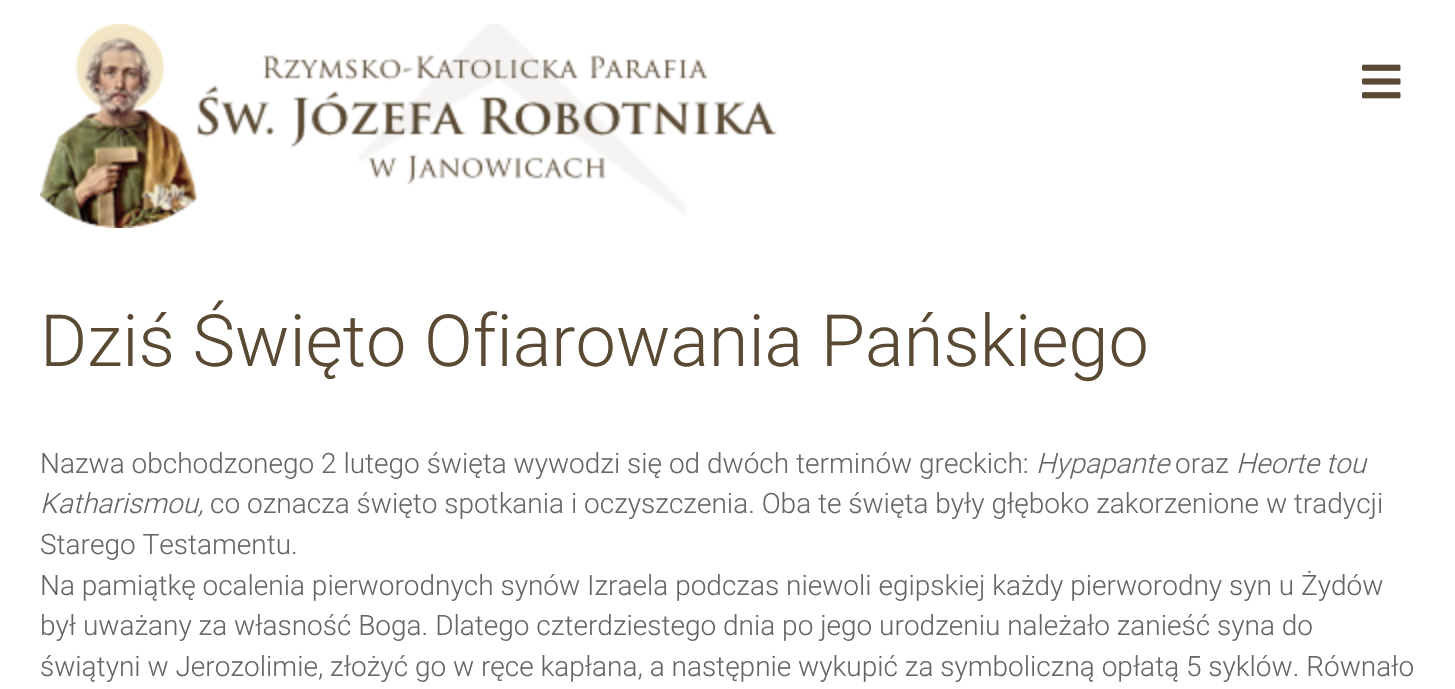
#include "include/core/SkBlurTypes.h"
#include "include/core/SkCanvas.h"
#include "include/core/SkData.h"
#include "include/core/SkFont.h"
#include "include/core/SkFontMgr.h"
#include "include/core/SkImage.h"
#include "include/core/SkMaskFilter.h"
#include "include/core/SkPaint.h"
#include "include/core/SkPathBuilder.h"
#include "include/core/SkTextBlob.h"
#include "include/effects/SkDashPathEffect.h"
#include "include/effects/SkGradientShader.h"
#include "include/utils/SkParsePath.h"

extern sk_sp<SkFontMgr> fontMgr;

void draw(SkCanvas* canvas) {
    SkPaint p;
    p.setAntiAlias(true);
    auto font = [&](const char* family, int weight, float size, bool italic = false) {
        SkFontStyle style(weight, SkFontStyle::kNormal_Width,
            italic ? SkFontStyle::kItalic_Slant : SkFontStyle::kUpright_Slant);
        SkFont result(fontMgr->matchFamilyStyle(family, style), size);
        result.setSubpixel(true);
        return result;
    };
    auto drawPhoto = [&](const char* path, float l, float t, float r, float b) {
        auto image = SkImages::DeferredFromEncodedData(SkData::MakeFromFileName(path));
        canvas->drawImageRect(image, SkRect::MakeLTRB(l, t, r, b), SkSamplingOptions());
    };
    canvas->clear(0xFFFFFFFF);
    drawPhoto("media/1.png", 40, 24, 777, 228);
    drawPhoto("media/2.png", 1362, 64, 1401, 99);
    auto font1 = font("Roboto", 300, 72);
    p.setColor(0xFF5A4A34);
    canvas->drawString("Dziś Święto Ofiarowania Pańskiego", 40, 366, font1, p);
    auto font2 = font("Roboto", 300, 28);
    p.setColor(0xFF666666);
    canvas->drawString("Nazwa obchodzonego 2 lutego święta wywodzi się od dwóch terminów greckich:", 40, 473, font2, p);
    auto font3 = font("Roboto", 300, 28, true);
    canvas->drawString("Hypapante", 1036, 473, font3, p);
    canvas->drawString("oraz", 1175, 473, font2, p);
    canvas->drawString("Heorte tou", 1236, 473, font3, p);
    canvas->drawString("Katharismou,", 40, 513, font3, p);
    {
        const struct { const char* s; float x, y; } items[] = {
            {"co oznacza święto spotkania i oczyszczenia. Oba te święta były głęboko zakorzenione w tradycji", 210, 513},
            {"Starego Testamentu.", 40, 554},
            {"Na pamiątkę ocalenia pierworodnych synów Izraela podczas niewoli egipskiej każdy pierworodny syn u Żydów", 40, 595},
            {"był uważany za własność Boga. Dlatego czterdziestego dnia po jego urodzeniu należało zanieść syna do", 40, 635},
            {"świątyni w Jerozolimie, złożyć go w ręce kapłana, a następnie wykupić za symboliczną opłatą 5 syklów. Równało", 40, 676},
        };
        for (auto [s, x, y] : items) {
            canvas->drawString(s, x, y, font2, p);
        }
    }
}
